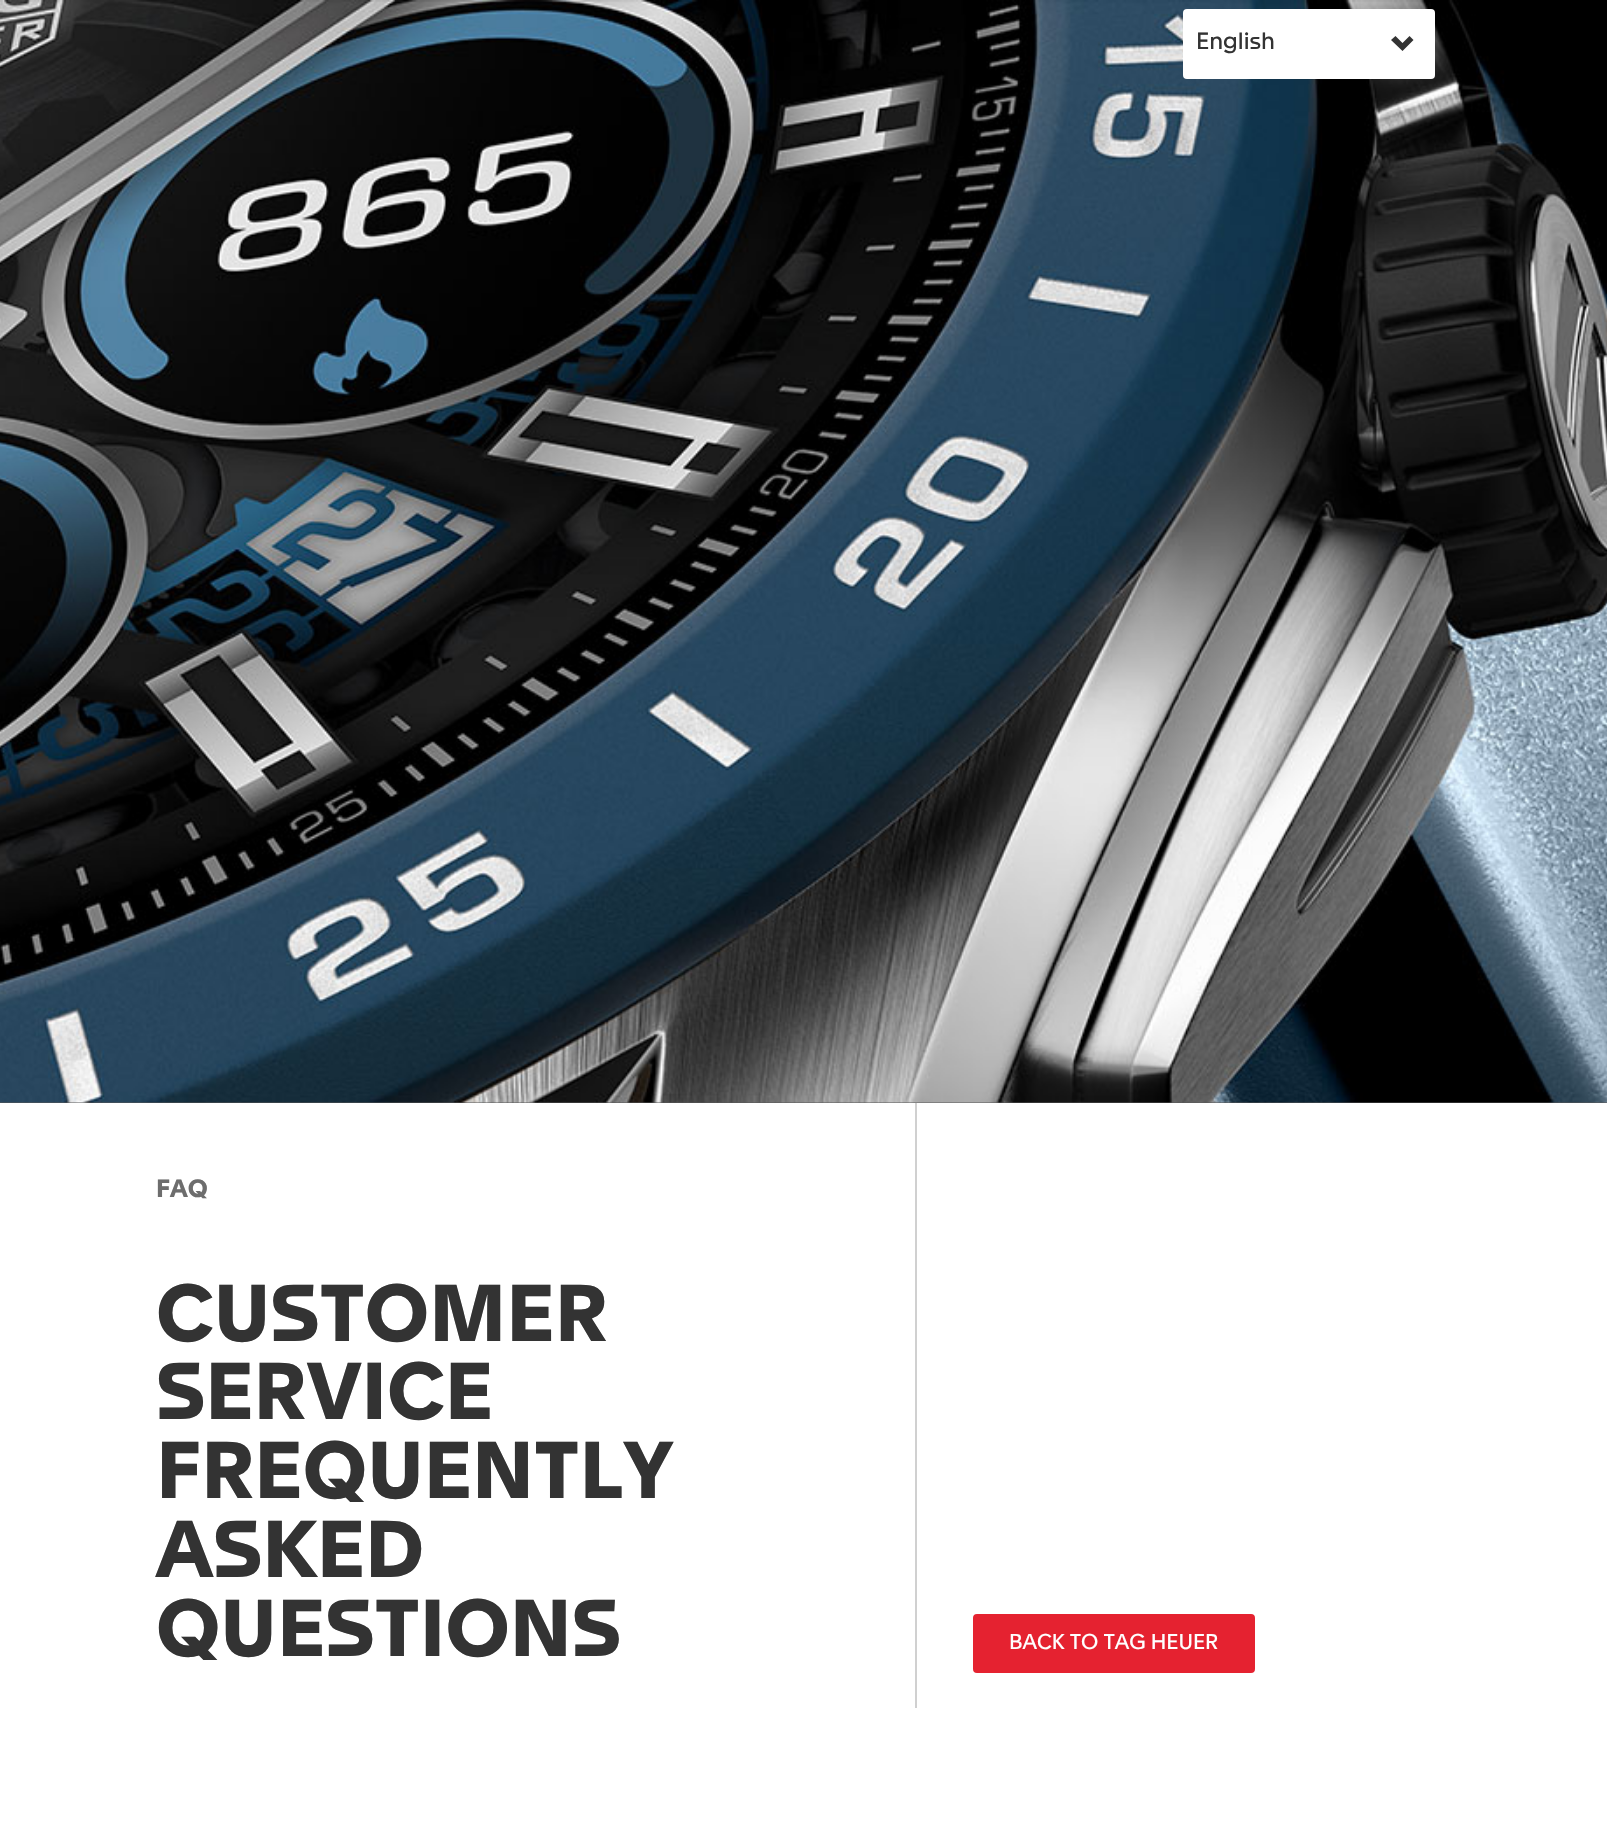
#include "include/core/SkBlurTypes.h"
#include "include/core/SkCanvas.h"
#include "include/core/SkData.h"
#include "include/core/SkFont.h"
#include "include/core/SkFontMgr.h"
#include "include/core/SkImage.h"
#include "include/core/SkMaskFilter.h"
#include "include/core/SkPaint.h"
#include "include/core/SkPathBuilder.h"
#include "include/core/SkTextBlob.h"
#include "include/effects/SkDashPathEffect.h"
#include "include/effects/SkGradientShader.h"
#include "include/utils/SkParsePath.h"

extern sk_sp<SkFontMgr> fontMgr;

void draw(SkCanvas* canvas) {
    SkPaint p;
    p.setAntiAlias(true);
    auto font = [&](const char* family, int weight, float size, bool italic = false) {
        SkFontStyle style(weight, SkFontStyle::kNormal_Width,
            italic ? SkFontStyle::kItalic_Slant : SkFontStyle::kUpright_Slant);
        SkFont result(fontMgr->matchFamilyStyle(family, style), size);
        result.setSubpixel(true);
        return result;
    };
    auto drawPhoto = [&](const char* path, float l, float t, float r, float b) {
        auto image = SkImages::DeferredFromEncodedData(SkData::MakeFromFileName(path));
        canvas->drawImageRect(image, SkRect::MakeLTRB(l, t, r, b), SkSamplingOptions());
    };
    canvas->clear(0xFFFFFFFF);
    p.setColor(0xFF575757);
    canvas->drawRect(SkRect::MakeLTRB(0, 1102, 1607, 1103), p);
    drawPhoto("media/1.png", 0, 0, 1607, 1103);
    p.setColor(0xFFFFFFFF);
    canvas->drawRoundRect(SkRect::MakeLTRB(1183, 9, 1435, 79), 4, 4, p);
    auto font1 = font("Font", 400, 23);
    p.setColor(0xFF333333);
    canvas->drawString("English", 1196, 49, font1, p);
    canvas->drawPath(SkPathBuilder().moveTo(1413.5f, 40).lineTo(1402.5f, 51).lineTo(1391, 40).lineTo(1395.5f, 36).lineTo(1402.5f, 43).lineTo(1409.5f, 36).close().detach(), p);
    p.setColor(0xFFD0D0D0);
    canvas->drawRect(SkRect::MakeLTRB(915, 1103, 917, 1708), p);
    auto font2 = font("Font", 700, 24.5f);
    p.setColor(0xFF6D6D6D);
    canvas->drawString("FAQ", 156, 1197, font2, p);
    auto font3 = font("Font", 700, 78.75f);
    p.setColor(0xFF333333);
    {
        const struct { const char* s; float x, y; } items[] = {
            {"CUSTOMER", 156, 1341},
            {"SERVICE", 156, 1419},
            {"FREQUENTLY", 156, 1498},
            {"ASKED", 156, 1577},
            {"QUESTIONS", 156, 1656},
        };
        for (auto [s, x, y] : items) {
            canvas->drawString(s, x, y, font3, p);
        }
    }
    p.setColor(0xFFE52230);
    canvas->drawRoundRect(SkRect::MakeLTRB(974, 1615, 1254, 1672), 3, 3, p);
    p.setStyle(SkPaint::kStroke_Style);
    p.setStrokeWidth(2);
    canvas->drawRoundRect(SkRect::MakeLTRB(974, 1615, 1254, 1672), 3, 3, p);
    auto font4 = font("Font", 400, 21);
    p.setStyle(SkPaint::kFill_Style);
    p.setColor(0xFFFFFFFF);
    canvas->drawString("BACK TO TAG HEUER", 1009, 1649, font4, p);
}
